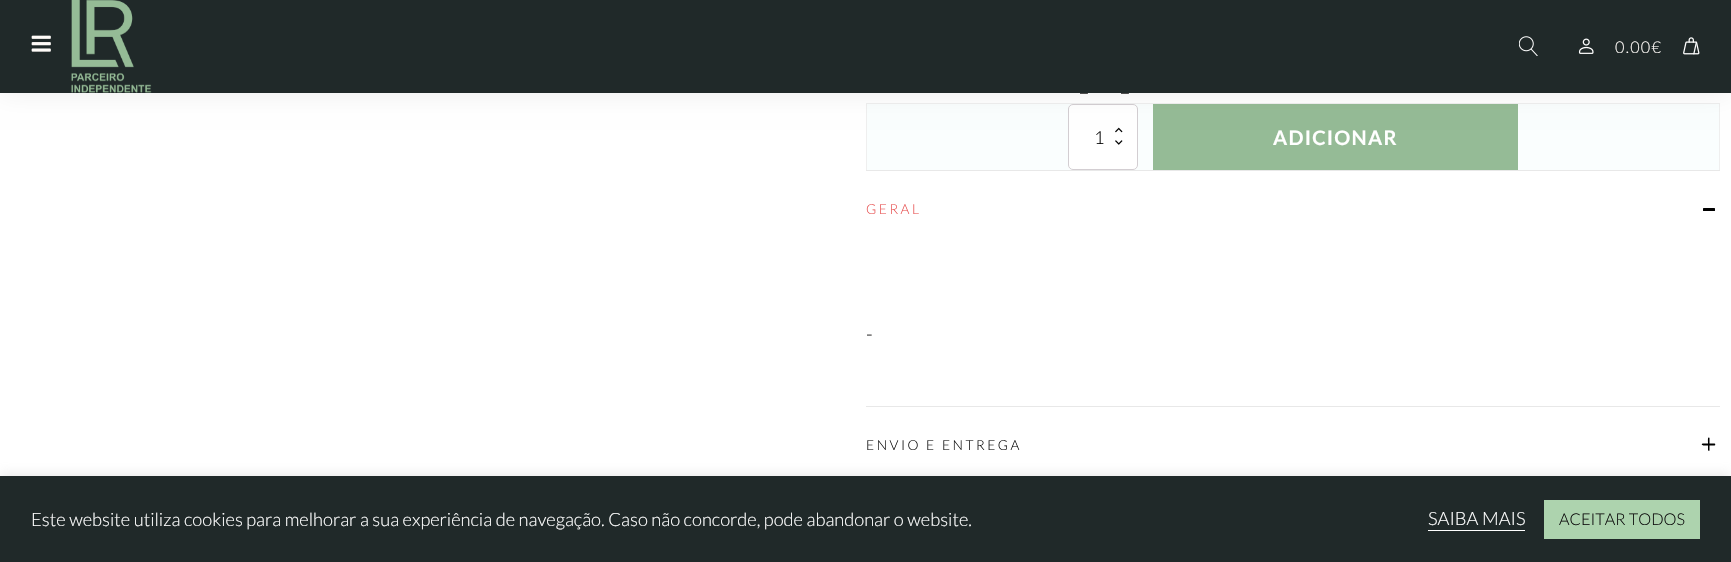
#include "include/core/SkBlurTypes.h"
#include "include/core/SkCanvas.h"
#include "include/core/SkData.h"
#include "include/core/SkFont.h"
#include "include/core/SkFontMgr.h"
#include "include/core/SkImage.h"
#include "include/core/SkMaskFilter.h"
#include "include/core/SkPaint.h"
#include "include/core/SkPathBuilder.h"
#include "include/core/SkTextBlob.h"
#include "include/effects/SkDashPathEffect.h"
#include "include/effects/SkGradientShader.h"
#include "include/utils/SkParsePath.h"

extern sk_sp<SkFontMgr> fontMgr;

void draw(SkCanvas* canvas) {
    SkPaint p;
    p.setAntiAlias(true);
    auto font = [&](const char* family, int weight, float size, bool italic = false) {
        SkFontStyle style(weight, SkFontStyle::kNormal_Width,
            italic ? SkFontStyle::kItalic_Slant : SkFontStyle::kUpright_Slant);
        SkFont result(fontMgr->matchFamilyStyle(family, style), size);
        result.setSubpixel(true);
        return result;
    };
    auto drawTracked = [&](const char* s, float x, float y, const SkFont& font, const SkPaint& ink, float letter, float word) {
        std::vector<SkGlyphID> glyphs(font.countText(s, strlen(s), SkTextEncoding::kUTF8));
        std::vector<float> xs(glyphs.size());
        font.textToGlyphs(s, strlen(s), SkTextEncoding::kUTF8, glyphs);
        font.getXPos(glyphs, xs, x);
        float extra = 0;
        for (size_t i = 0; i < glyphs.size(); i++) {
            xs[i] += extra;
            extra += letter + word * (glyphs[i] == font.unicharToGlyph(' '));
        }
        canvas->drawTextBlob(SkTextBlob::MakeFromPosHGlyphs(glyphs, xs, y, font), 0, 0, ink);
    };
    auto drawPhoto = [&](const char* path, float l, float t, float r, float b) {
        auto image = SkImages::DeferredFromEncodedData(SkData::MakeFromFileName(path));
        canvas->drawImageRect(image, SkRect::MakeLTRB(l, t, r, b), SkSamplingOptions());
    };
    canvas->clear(0xFFFFFFFF);
    p.setColor(0xFFFAFEFE);
    canvas->drawRect(SkRect::MakeLTRB(866.5f, 103.5f, 1719.5f, 170.5f), p);
    p.setStyle(SkPaint::kStroke_Style);
    p.setStrokeWidth(1);
    p.setColor(0xFFEFEFEF);
    canvas->drawRect(SkRect::MakeLTRB(866.5f, 103.5f, 1719.5f, 170.5f), p);
    p.setStyle(SkPaint::kFill_Style);
    p.setColor(0xFFFFFFFF);
    canvas->drawRoundRect(SkRect::MakeLTRB(1068, 104, 1138, 170), 5, 5, p);
    drawPhoto("media/6.png", 1115, 127, 1123, 133);
    drawPhoto("media/7.png", 1115, 140, 1123, 145);
    p.setStyle(SkPaint::kStroke_Style);
    p.setColor(0xFFD3CED2);
    canvas->drawRoundRect(SkRect::MakeLTRB(1068.5f, 104.5f, 1137.5f, 169.5f), 4.5f, 4.5f, p);
    p.setStyle(SkPaint::kFill_Style);
    p.setColor(0xFF95BB96);
    canvas->drawRect(SkRect::MakeLTRB(1153, 104, 1518, 170), p);
    p.setColor(0x12000000);
    p.setMaskFilter(SkMaskFilter::MakeBlur(kNormal_SkBlurStyle, 12.5f));
    canvas->drawRect(SkRect::MakeLTRB(0, 0, 1731, 93), p);
    p.setMaskFilter(nullptr);
    p.setColor(0xFF202929);
    canvas->drawRect(SkRect::MakeLTRB(0, 0, 1731, 93), p);
    drawPhoto("media/1.png", 31, 35, 51, 52);
    drawPhoto("media/2.png", 71, 0, 152, 93);
    drawPhoto("media/3.png", 1519, 36, 1538, 56);
    drawPhoto("media/4.png", 1578, 38, 1594, 54);
    auto font1 = font("Lato", 300, 16.25f);
    p.setColor(0xFFFFFBF8);
    drawTracked("0.00€", 1615, 53, font1, p, 1.25f, 0);
    drawPhoto("media/5.png", 1683, 37, 1700, 55);
    auto font2 = font("Lato", 300, 20);
    p.setColor(0xFF1A1919);
    canvas->drawString("_", 1080, 91, font2, p);
    canvas->drawString("_", 1121, 91, font2, p);
    auto font3 = font("Lato", 300, 18);
    p.setColor(0xFF000000);
    canvas->drawString("1", 1094, 144, font3, p);
    auto font4 = font("Lato", 700, 20);
    p.setColor(0xFFFFFFFF);
    drawTracked("ADICIONAR", 1273, 145, font4, p, 1.25f, 0);
    p.setColor(0xFFE8E8E8);
    canvas->drawRect(SkRect::MakeLTRB(866, 170, 1720, 171), p);
    auto font5 = font("Lato", 300, 13.75f);
    p.setColor(0xFFE85555);
    drawTracked("GERAL", 866, 214, font5, p, 2.5f, 0);
    p.setColor(0xFF000000);
    canvas->drawRoundRect(SkRect::MakeLTRB(1703, 208, 1715, 211), 0.5f, 0.5f, p);
    p.setColor(0xFF1A1919);
    drawTracked("-", 866, 341, font2, p, 2, 0);
    p.setColor(0xFFE8E8E8);
    canvas->drawRect(SkRect::MakeLTRB(866, 406, 1720, 407), p);
    p.setColor(0xFF0F0F0F);
    drawTracked("ENVIO E ENTREGA", 866, 450, font5, p, 2.5f, 0);
    p.setColor(0xFF000000);
    canvas->drawPath(SkPathBuilder().moveTo(1708, 450).lineTo(1708, 442.5f).cubicTo(1708, 440.5f, 1707.5f, 436, 1709.5f, 438).lineTo(1709.5f, 450.5f).cubicTo(1709.5f, 451, 1708, 451, 1708, 450).close().detach(), p);
    canvas->drawPath(SkPathBuilder().moveTo(1714.5f, 445.5f).lineTo(1707, 445.5f).cubicTo(1705, 445.5f, 1700, 446, 1702.5f, 443.5f).lineTo(1714.5f, 443.5f).cubicTo(1715.5f, 443.5f, 1715.5f, 445.5f, 1714.5f, 445.5f).close().detach(), p);
    p.setColor(0x4DACABAB);
    p.setMaskFilter(SkMaskFilter::MakeBlur(kNormal_SkBlurStyle, 6));
    canvas->drawRect(SkRect::MakeLTRB(0, 475, 1731, 561), p);
    p.setMaskFilter(nullptr);
    p.setColor(0xFF202929);
    canvas->drawRect(SkRect::MakeLTRB(0, 476, 1731, 562), p);
    auto font6 = font("Lato", 300, 18.33f);
    p.setColor(0xFFFFFFFF);
    canvas->drawString("Este website utiliza cookies para melhorar a sua experiência de navegação. Caso não concorde, pode abandonar o website.", 31, 526, font6, p);
    canvas->drawRect(SkRect::MakeLTRB(1428, 530, 1525, 531), p);
    canvas->drawString("SAIBA MAIS", 1428, 525, font6, p);
    p.setColor(0xFFADD3AE);
    canvas->drawRect(SkRect::MakeLTRB(1544, 500, 1700, 539), p);
    p.setColor(0xFF0F0F0F);
    canvas->drawString("ACEITAR TODOS", 1559, 525, font1, p);
}
